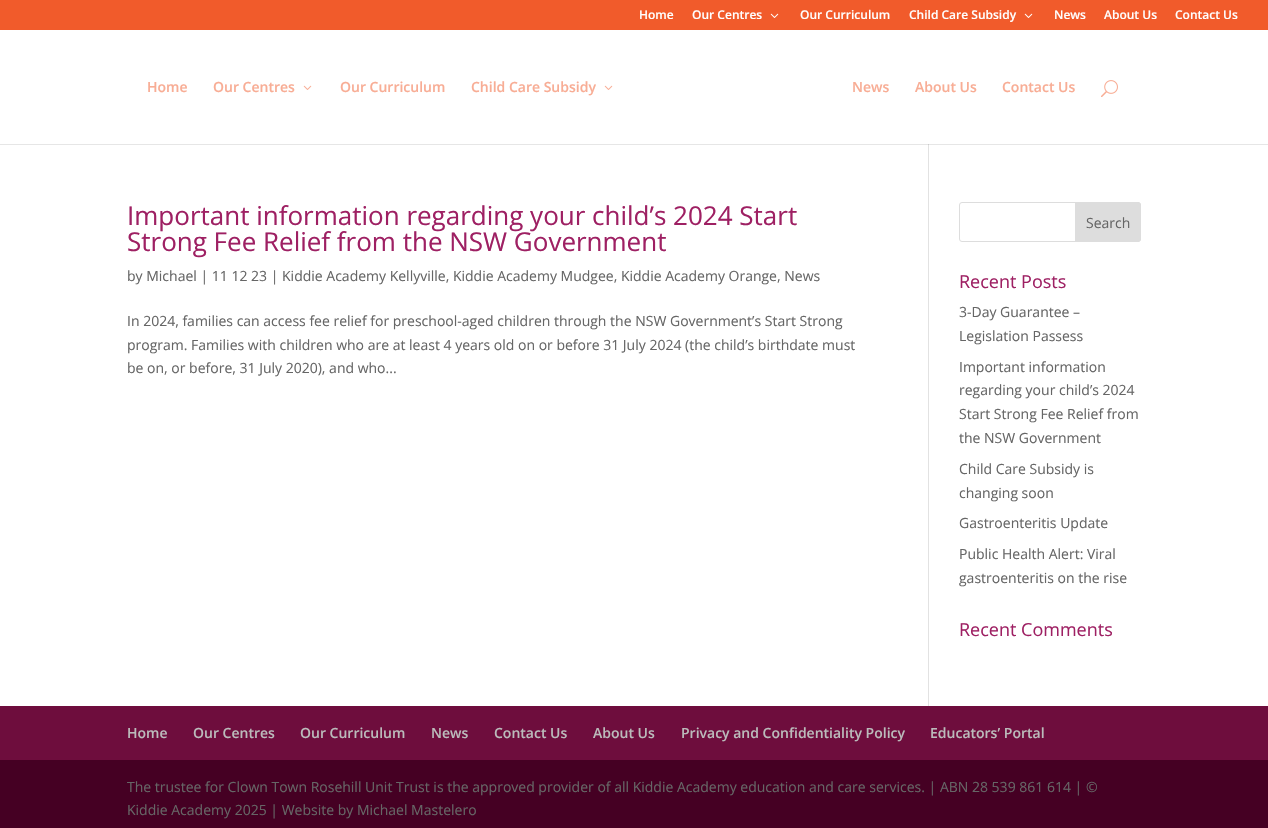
#include "include/core/SkBlurTypes.h"
#include "include/core/SkCanvas.h"
#include "include/core/SkData.h"
#include "include/core/SkFont.h"
#include "include/core/SkFontMgr.h"
#include "include/core/SkImage.h"
#include "include/core/SkMaskFilter.h"
#include "include/core/SkPaint.h"
#include "include/core/SkPathBuilder.h"
#include "include/core/SkTextBlob.h"
#include "include/effects/SkDashPathEffect.h"
#include "include/effects/SkGradientShader.h"
#include "include/utils/SkParsePath.h"

extern sk_sp<SkFontMgr> fontMgr;

void draw(SkCanvas* canvas) {
    SkPaint p;
    p.setAntiAlias(true);
    auto font = [&](const char* family, int weight, float size, bool italic = false) {
        SkFontStyle style(weight, SkFontStyle::kNormal_Width,
            italic ? SkFontStyle::kItalic_Slant : SkFontStyle::kUpright_Slant);
        SkFont result(fontMgr->matchFamilyStyle(family, style), size);
        result.setSubpixel(true);
        return result;
    };
    auto drawPhoto = [&](const char* path, float l, float t, float r, float b) {
        auto image = SkImages::DeferredFromEncodedData(SkData::MakeFromFileName(path));
        canvas->drawImageRect(image, SkRect::MakeLTRB(l, t, r, b), SkSamplingOptions());
    };
    canvas->clear(0xFFFFFFFF);
    p.setColor(0xFFF15B2B);
    canvas->drawRect(SkRect::MakeLTRB(0, 0, 1268, 30), p);
    auto font1 = font("Open Sans", 600, 12);
    p.setColor(0xFFFFFFFF);
    canvas->drawString("Home", 639, 19, font1, p);
    canvas->drawString("Our Centres", 692, 19, font1, p);
    drawPhoto("media/1.png", 770, 13, 779, 18);
    canvas->drawString("Our Curriculum", 800, 19, font1, p);
    canvas->drawString("Child Care Subsidy", 909, 19, font1, p);
    drawPhoto("media/1.png", 1024, 13, 1033, 18);
    {
        const struct { const char* s; float x, y; } items[] = {
            {"News", 1054, 19},
            {"About Us", 1104, 19},
            {"Contact Us", 1175, 19},
        };
        for (auto [s, x, y] : items) {
            canvas->drawString(s, x, y, font1, p);
        }
    }
    auto font2 = font("Open Sans", 600, 14);
    p.setColor(0xFFF8AD95);
    canvas->drawString("Home", 147, 92, font2, p);
    canvas->drawString("Our Centres", 213, 92, font2, p);
    drawPhoto("media/2.png", 303, 85, 312, 90);
    canvas->drawString("Our Curriculum", 340, 92, font2, p);
    canvas->drawString("Child Care Subsidy", 471, 92, font2, p);
    drawPhoto("media/2.png", 604, 85, 613, 90);
    {
        const struct { const char* s; float x, y; } items[] = {
            {"News", 852, 92},
            {"About Us", 915, 92},
            {"Contact Us", 1002, 92},
        };
        for (auto [s, x, y] : items) {
            canvas->drawString(s, x, y, font2, p);
        }
    }
    drawPhoto("media/3.png", 1101, 80, 1118, 97);
    {
        const struct { float l, t, r, b; SkColor color; } items[] = {
            {0, 144, 1268, 145, 0xFFE6E6E6},
            {928, 144, 929, 706, 0xFFE2E2E2},
            {928, 144, 929, 145, 0xFFCBCBCB},
        };
        for (auto [l, t, r, b, color] : items) {
            p.setColor(color);
            canvas->drawRect(SkRect::MakeLTRB(l, t, r, b), p);
        }
    }
    auto font3 = font("Open Sans", 400, 26);
    p.setColor(0xFF9E2063);
    canvas->drawString("Important information regarding your child’s 2024 Start", 127, 225, font3, p);
    canvas->drawString("Strong Fee Relief from the NSW Government", 127, 251, font3, p);
    auto font4 = font("Open Sans", 400, 14);
    p.setColor(0xFF666666);
    {
        const struct { const char* s; float x, y; } items[] = {
            {"by Michael | 11 12 23 | Kiddie Academy Kellyville, Kiddie Academy Mudgee, Kiddie Academy Orange, News", 127, 281},
            {"In 2024, families can access fee relief for preschool-aged children through the NSW Government’s Start Strong", 127, 326},
            {"program. Families with children who are at least 4 years old on or before 31 July 2024 (the child’s birthdate must", 127, 350},
            {"be on, or before, 31 July 2020), and who...", 127, 373},
        };
        for (auto [s, x, y] : items) {
            canvas->drawString(s, x, y, font4, p);
        }
    }
    p.setStyle(SkPaint::kStroke_Style);
    p.setStrokeWidth(1);
    p.setColor(0xFFDDDDDD);
    canvas->drawRoundRect(SkRect::MakeLTRB(959.5f, 202.5f, 1140.5f, 241.5f), 2.5f, 2.5f, p);
    p.setStyle(SkPaint::kFill_Style);
    canvas->drawPath(SkPathBuilder().moveTo(1075.5f, 202.5f).lineTo(1138, 202.5f).cubicTo(1139.5f, 202.5f, 1140.5f, 203.5f, 1140.5f, 205).lineTo(1140.5f, 239).cubicTo(1140.5f, 240.5f, 1139.5f, 241.5f, 1138, 241.5f).lineTo(1075.5f, 241.5f).close().detach(), p);
    p.setStyle(SkPaint::kStroke_Style);
    canvas->drawPath(SkPathBuilder().moveTo(1075.5f, 202.5f).lineTo(1138, 202.5f).cubicTo(1139.5f, 202.5f, 1140.5f, 203.5f, 1140.5f, 205).lineTo(1140.5f, 239).cubicTo(1140.5f, 240.5f, 1139.5f, 241.5f, 1138, 241.5f).lineTo(1075.5f, 241.5f).close().detach(), p);
    p.setStyle(SkPaint::kFill_Style);
    p.setColor(0xFF666666);
    canvas->drawString("Search", 1086, 228, font4, p);
    auto font5 = font("Open Sans", 400, 18);
    p.setColor(0xFF9E2063);
    canvas->drawString("Recent Posts", 959, 288, font5, p);
    p.setColor(0xFF666666);
    {
        const struct { const char* s; float x, y; } items[] = {
            {"3-Day Guarantee –", 959, 317},
            {"Legislation Passess", 959, 341},
            {"Important information", 959, 372},
            {"regarding your child’s 2024", 959, 395},
            {"Start Strong Fee Relief from", 959, 419},
            {"the NSW Government", 959, 443},
            {"Child Care Subsidy is", 959, 474},
            {"changing soon", 959, 498},
            {"Gastroenteritis Update", 959, 528},
            {"Public Health Alert: Viral", 959, 559},
            {"gastroenteritis on the rise", 959, 583},
        };
        for (auto [s, x, y] : items) {
            canvas->drawString(s, x, y, font4, p);
        }
    }
    p.setColor(0xFF9E2063);
    canvas->drawString("Recent Comments", 959, 636, font5, p);
    p.setColor(0xFF6E0D3D);
    canvas->drawRect(SkRect::MakeLTRB(0, 706, 1268, 760), p);
    p.setColor(0xFFBBBBBB);
    {
        const struct { const char* s; float x, y; } items[] = {
            {"Home", 127, 738},
            {"Our Centres", 193, 738},
            {"Our Curriculum", 300, 738},
            {"News", 431, 738},
            {"Contact Us", 494, 738},
            {"About Us", 593, 738},
            {"Privacy and Confidentiality Policy", 681, 738},
            {"Educators’ Portal", 930, 738},
        };
        for (auto [s, x, y] : items) {
            canvas->drawString(s, x, y, font2, p);
        }
    }
    p.setColor(0xFF450023);
    canvas->drawRect(SkRect::MakeLTRB(0, 760, 1268, 828), p);
    p.setColor(0xFF666666);
    canvas->drawString("The trustee for Clown Town Rosehill Unit Trust is the approved provider of all Kiddie Academy education and care services. | ABN 28 539 861 614 | ©", 127, 792, font4, p);
    canvas->drawString("Kiddie Academy 2025 | Website by Michael Mastelero", 127, 815, font4, p);
}
